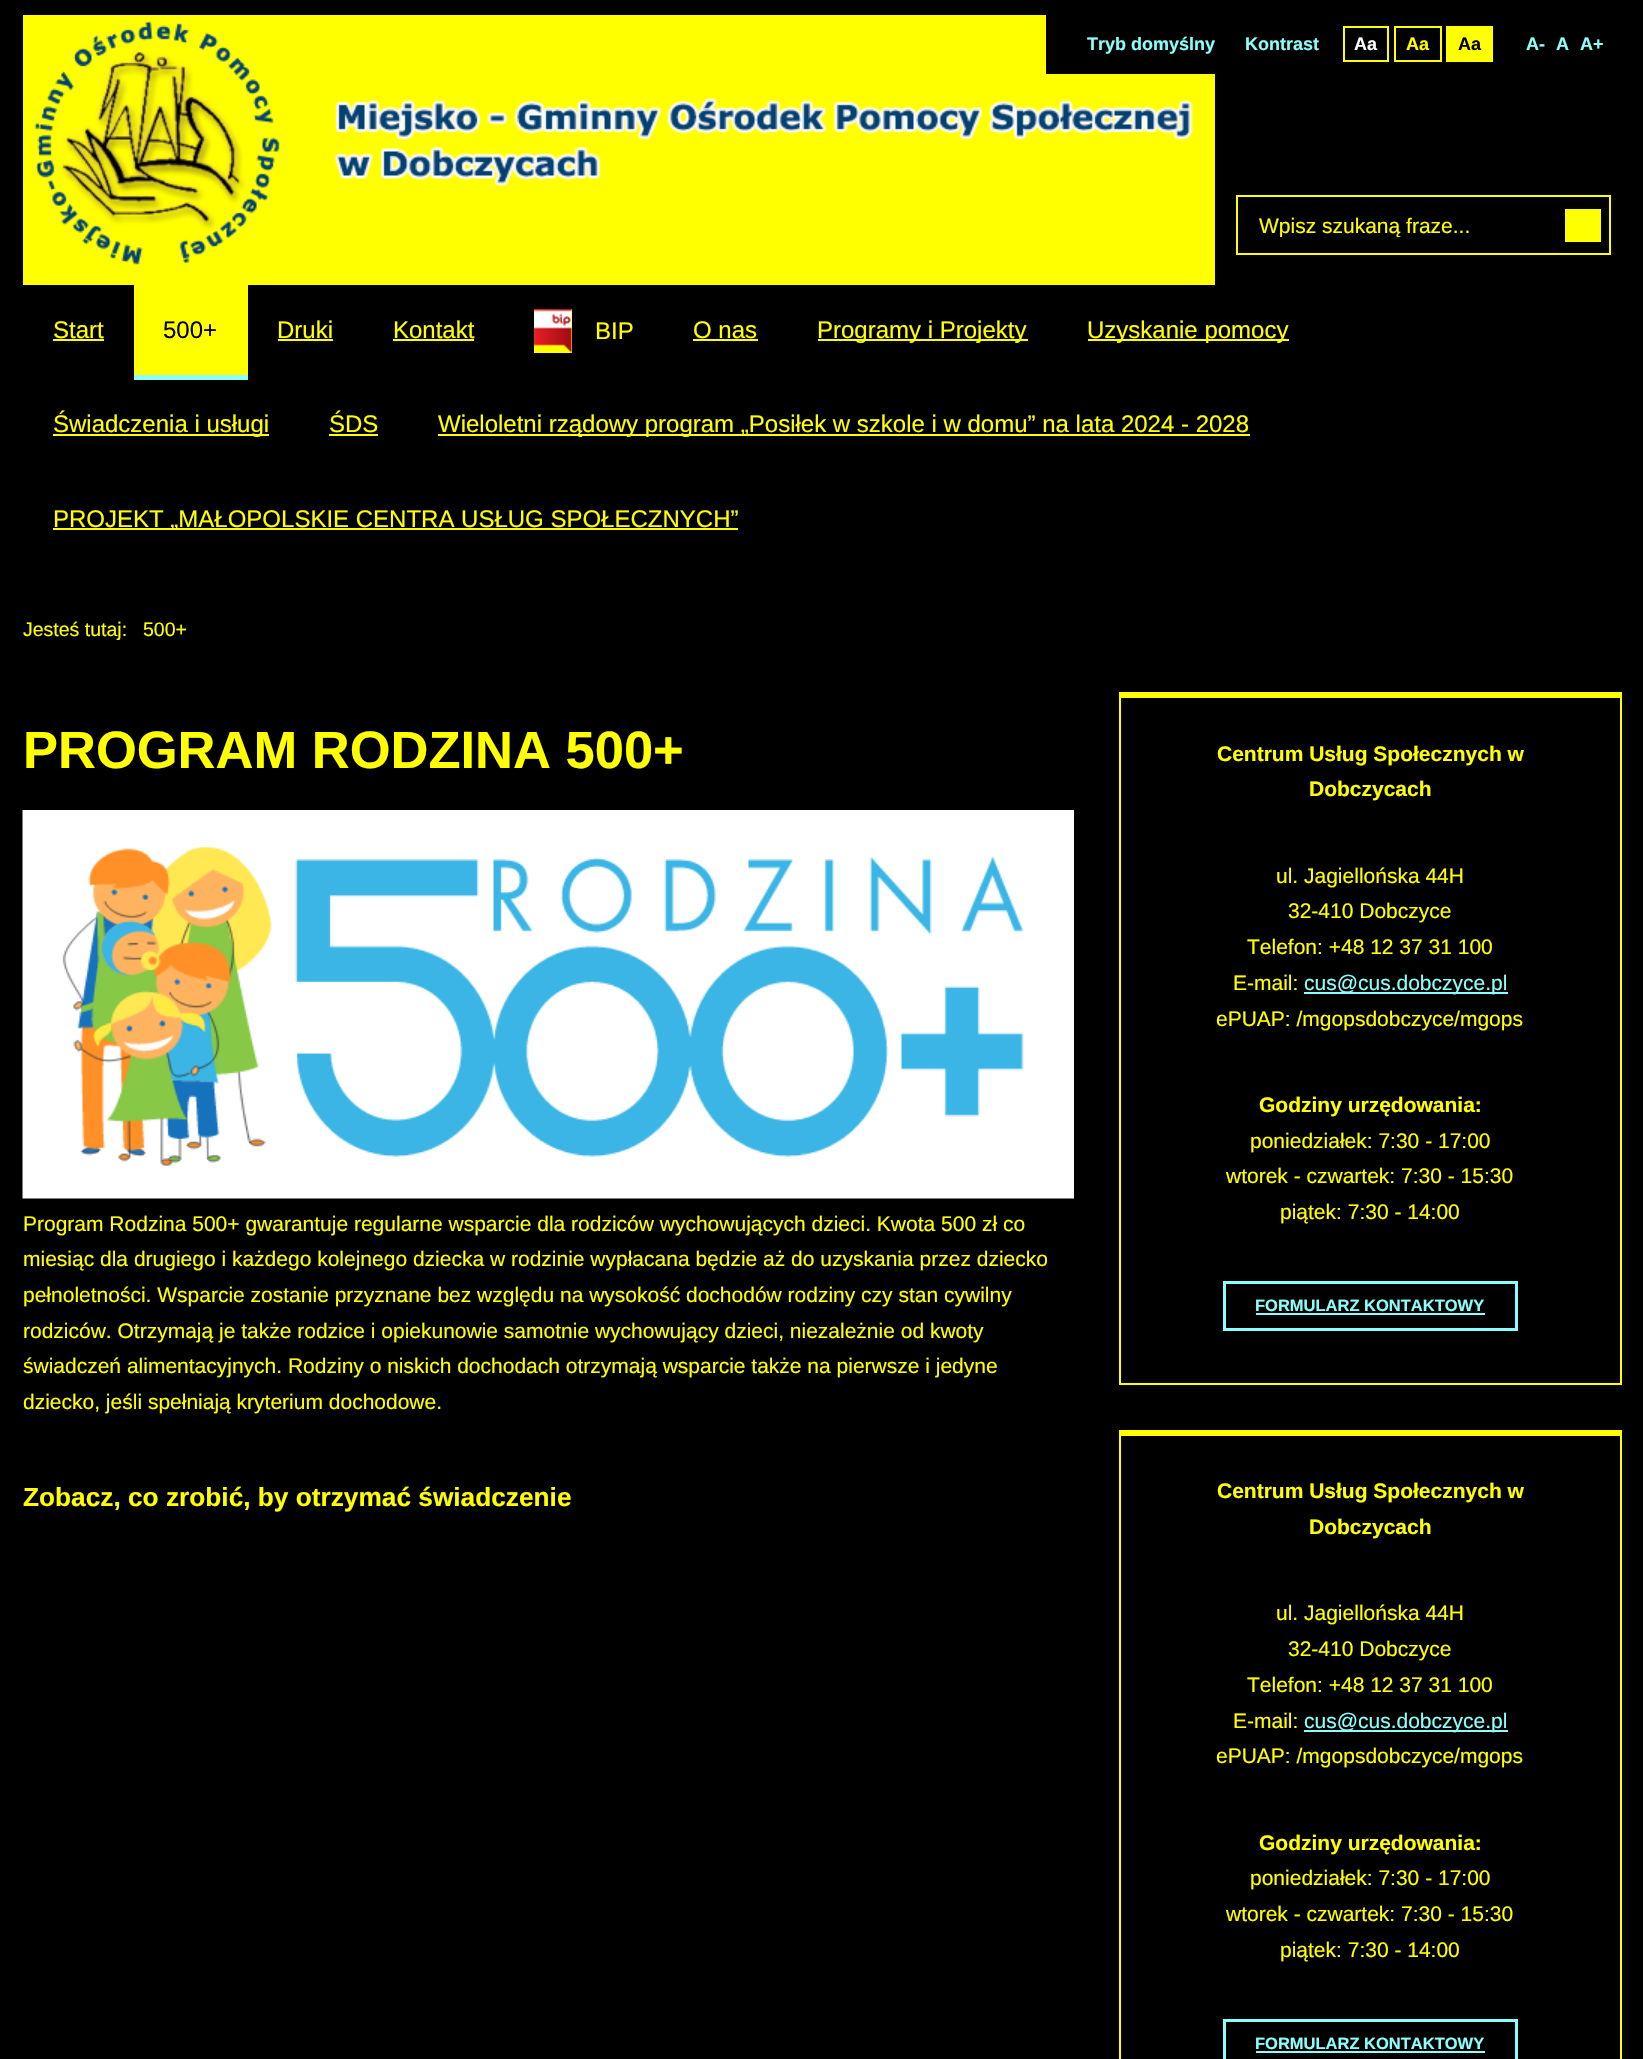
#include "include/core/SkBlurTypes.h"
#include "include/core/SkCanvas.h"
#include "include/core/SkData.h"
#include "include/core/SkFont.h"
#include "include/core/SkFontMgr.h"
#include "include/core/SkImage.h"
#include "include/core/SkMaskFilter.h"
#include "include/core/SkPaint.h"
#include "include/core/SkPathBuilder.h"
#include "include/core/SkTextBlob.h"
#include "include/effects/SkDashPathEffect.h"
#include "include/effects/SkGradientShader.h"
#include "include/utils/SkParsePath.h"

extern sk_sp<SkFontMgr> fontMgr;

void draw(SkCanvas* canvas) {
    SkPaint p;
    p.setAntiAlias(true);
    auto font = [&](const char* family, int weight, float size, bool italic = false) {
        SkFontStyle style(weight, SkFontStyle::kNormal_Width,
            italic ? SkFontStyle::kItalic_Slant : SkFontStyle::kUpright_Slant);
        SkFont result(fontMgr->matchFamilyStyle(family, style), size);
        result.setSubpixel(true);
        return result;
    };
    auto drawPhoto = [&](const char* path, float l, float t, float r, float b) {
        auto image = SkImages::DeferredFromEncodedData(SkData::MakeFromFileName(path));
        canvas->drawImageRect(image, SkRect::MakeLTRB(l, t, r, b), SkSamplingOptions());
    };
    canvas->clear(0xFF000000);
    p.setColor(0xFFFFFF00);
    canvas->drawRect(SkRect::MakeLTRB(23, 15, 1215, 285), p);
    drawPhoto("media/1.png", 34, 21, 1193, 265);
    p.setColor(0xFF000000);
    canvas->drawRect(SkRect::MakeLTRB(1046, 15, 1215, 74), p);
    auto font1 = font("Liberation Sans", 700, 18);
    p.setColor(0xFF8BFFFB);
    canvas->drawString("Tryb domyślny", 1087, 50, font1, p);
    canvas->drawString("Kontrast", 1245, 50, font1, p);
    p.setStyle(SkPaint::kStroke_Style);
    p.setStrokeWidth(2);
    p.setColor(0xFFFFFF00);
    canvas->drawRect(SkRect::MakeLTRB(1344, 27, 1388, 61), p);
    p.setStyle(SkPaint::kFill_Style);
    p.setColor(0xFFFFFFFF);
    canvas->drawString("Aa", 1354, 50, font1, p);
    p.setStyle(SkPaint::kStroke_Style);
    p.setColor(0xFFFFFF00);
    canvas->drawRect(SkRect::MakeLTRB(1395, 27, 1441, 61), p);
    p.setStyle(SkPaint::kFill_Style);
    canvas->drawString("Aa", 1406, 50, font1, p);
    canvas->drawRect(SkRect::MakeLTRB(1446, 26, 1493, 62), p);
    p.setColor(0xFF000000);
    canvas->drawString("Aa", 1458, 50, font1, p);
    p.setColor(0xFF8BFFFB);
    {
        const struct { const char* s; float x, y; } items[] = {
            {"A-", 1526, 50},
            {"A", 1556, 50},
            {"A+", 1580, 50},
        };
        for (auto [s, x, y] : items) {
            canvas->drawString(s, x, y, font1, p);
        }
    }
    p.setStyle(SkPaint::kStroke_Style);
    p.setColor(0xFFFFFF00);
    canvas->drawRect(SkRect::MakeLTRB(1237, 196, 1610, 254), p);
    canvas->save();
    canvas->clipRect(SkRect::MakeLTRB(1259, 213, 1583, 237));
    auto font2 = font("Liberation Sans", 400, 21);
    p.setStyle(SkPaint::kFill_Style);
    canvas->drawString("Wpisz szukaną fraze...", 1259, 233, font2, p);
    canvas->restore();
    canvas->drawRect(SkRect::MakeLTRB(1565, 209, 1601, 242), p);
    auto font3 = font("Liberation Sans", 400, 24);
    canvas->drawString("Start", 53, 338, font3, p);
    {
        const struct { float l, t, r, b; SkColor color; } items[] = {
            {53, 339, 104, 341, 0xFFFFFF00},
            {134, 285, 248, 375, 0xFFFFFF00},
            {134, 375, 248, 380, 0xFF8BFFFB},
        };
        for (auto [l, t, r, b, color] : items) {
            p.setColor(color);
            canvas->drawRect(SkRect::MakeLTRB(l, t, r, b), p);
        }
    }
    p.setColor(0xFF000000);
    canvas->drawString("500+", 163, 338, font3, p);
    p.setColor(0xFFFFFF00);
    canvas->drawString("Druki", 277, 338, font3, p);
    canvas->drawRect(SkRect::MakeLTRB(278, 339, 333, 341), p);
    canvas->drawString("Kontakt", 393, 338, font3, p);
    canvas->drawRect(SkRect::MakeLTRB(393, 339, 474, 341), p);
    canvas->drawRect(SkRect::MakeLTRB(534, 309, 572, 353), p);
    drawPhoto("media/2.png", 534, 309, 572, 353);
    canvas->drawString("BIP", 595, 339, font3, p);
    canvas->drawString("O nas", 693, 338, font3, p);
    canvas->drawRect(SkRect::MakeLTRB(693, 339, 758, 341), p);
    canvas->drawRect(SkRect::MakeLTRB(818, 339, 1028, 341), p);
    canvas->drawString("Programy i Projekty", 817, 338, font3, p);
    canvas->drawRect(SkRect::MakeLTRB(1088, 339, 1289, 341), p);
    canvas->drawString("Uzyskanie pomocy", 1087, 338, font3, p);
    canvas->drawRect(SkRect::MakeLTRB(53, 434, 269, 436), p);
    canvas->drawString("Świadczenia i usługi", 53, 432, font3, p);
    canvas->drawString("ŚDS", 329, 432, font3, p);
    canvas->drawRect(SkRect::MakeLTRB(329, 434, 378, 436), p);
    canvas->drawRect(SkRect::MakeLTRB(438, 434, 1250, 436), p);
    canvas->drawString("Wieloletni rządowy program „Posiłek w szkole i w domu” na lata 2024 - 2028", 438, 432, font3, p);
    canvas->drawRect(SkRect::MakeLTRB(53, 528, 738, 530), p);
    canvas->drawString("PROJEKT „MAŁOPOLSKIE CENTRA USŁUG SPOŁECZNYCH”", 53, 527, font3, p);
    auto font4 = font("Liberation Sans", 400, 19.5f);
    canvas->drawString("Jesteś tutaj:", 23, 636, font4, p);
    canvas->drawString("500+", 143, 636, font4, p);
    auto font5 = font("Liberation Sans", 700, 52.5f);
    canvas->drawString("PROGRAM RODZINA 500+", 23, 768, font5, p);
    drawPhoto("media/3.png", 22, 810, 1074, 1199);
    {
        const struct { const char* s; float x, y; } items[] = {
            {"Program Rodzina 500+ gwarantuje regularne wsparcie dla rodziców wychowujących dzieci. Kwota 500 zł co", 23, 1231},
            {"miesiąc dla drugiego i każdego kolejnego dziecka w rodzinie wypłacana będzie aż do uzyskania przez dziecko", 23, 1266},
            {"pełnoletności. Wsparcie zostanie przyznane bez względu na wysokość dochodów rodziny czy stan cywilny", 23, 1302},
            {"rodziców. Otrzymają je także rodzice i opiekunowie samotnie wychowujący dzieci, niezależnie od kwoty", 23, 1338},
            {"świadczeń alimentacyjnych. Rodziny o niskich dochodach otrzymają wsparcie także na pierwsze i jedyne", 23, 1373},
            {"dziecko, jeśli spełniają kryterium dochodowe.", 23, 1409},
        };
        for (auto [s, x, y] : items) {
            canvas->drawString(s, x, y, font2, p);
        }
    }
    auto font6 = font("Liberation Sans", 700, 26.25f);
    canvas->drawString("Zobacz, co zrobić, by otrzymać świadczenie", 23, 1506, font6, p);
    {
        const struct { float l, t, r, b; SkColor color; } items[] = {
            {1119, 692, 1622, 698, 0xFFFFFF00},
            {1620, 692, 1622, 1385, 0xFFFFFF00},
            {1119, 1383, 1622, 1385, 0xFFFFFF00},
            {1119, 692, 1121, 1385, 0xFFFFFF00},
        };
        for (auto [l, t, r, b, color] : items) {
            p.setColor(color);
            canvas->drawRect(SkRect::MakeLTRB(l, t, r, b), p);
        }
    }
    auto font7 = font("Liberation Sans", 700, 21);
    canvas->drawString("Centrum Usług Społecznych w", 1217, 761, font7, p);
    canvas->drawString("Dobczycach", 1309, 796, font7, p);
    {
        const struct { const char* s; float x, y; } items[] = {
            {"ul. Jagiellońska 44H", 1276, 883},
            {"32-410 Dobczyce", 1288, 918},
            {"Telefon: +48 12 37 31 100", 1247, 954},
            {"E-mail:", 1233, 990},
        };
        for (auto [s, x, y] : items) {
            canvas->drawString(s, x, y, font2, p);
        }
    }
    p.setColor(0xFF8BFFFB);
    canvas->drawRect(SkRect::MakeLTRB(1304, 992, 1508, 994), p);
    canvas->drawString("cus@cus.dobczyce.pl", 1304, 990, font2, p);
    p.setColor(0xFFFFFF00);
    canvas->drawString("ePUAP: /mgopsdobczyce/mgops", 1216, 1026, font2, p);
    canvas->drawString("Godziny urzędowania:", 1259, 1112, font7, p);
    {
        const struct { const char* s; float x, y; } items[] = {
            {"poniedziałek: 7:30 - 17:00", 1250, 1148},
            {"wtorek - czwartek: 7:30 - 15:30", 1226, 1183},
            {"piątek: 7:30 - 14:00", 1280, 1219},
        };
        for (auto [s, x, y] : items) {
            canvas->drawString(s, x, y, font2, p);
        }
    }
    p.setStyle(SkPaint::kStroke_Style);
    p.setStrokeWidth(3);
    p.setColor(0xFF8BFFFB);
    canvas->drawRect(SkRect::MakeLTRB(1224.5f, 1282.5f, 1516.5f, 1329.5f), p);
    auto font8 = font("Liberation Sans", 700, 16.5f);
    p.setStyle(SkPaint::kFill_Style);
    canvas->drawString("FORMULARZ KONTAKTOWY", 1255, 1311, font8, p);
    {
        const struct { float l, t, r, b; SkColor color; } items[] = {
            {1256, 1313, 1485, 1315, 0xFF8BFFFB},
            {1119, 1430, 1622, 1436, 0xFFFFFF00},
            {1620, 1430, 1622, 2059, 0xFFFFFF00},
            {1119, 1430, 1121, 2059, 0xFFFFFF00},
        };
        for (auto [l, t, r, b, color] : items) {
            p.setColor(color);
            canvas->drawRect(SkRect::MakeLTRB(l, t, r, b), p);
        }
    }
    canvas->drawString("Centrum Usług Społecznych w", 1217, 1498, font7, p);
    canvas->drawString("Dobczycach", 1309, 1534, font7, p);
    {
        const struct { const char* s; float x, y; } items[] = {
            {"ul. Jagiellońska 44H", 1276, 1620},
            {"32-410 Dobczyce", 1288, 1656},
            {"Telefon: +48 12 37 31 100", 1247, 1692},
            {"E-mail:", 1233, 1728},
        };
        for (auto [s, x, y] : items) {
            canvas->drawString(s, x, y, font2, p);
        }
    }
    p.setColor(0xFF8BFFFB);
    canvas->drawRect(SkRect::MakeLTRB(1304, 1730, 1508, 1732), p);
    canvas->drawString("cus@cus.dobczyce.pl", 1304, 1728, font2, p);
    p.setColor(0xFFFFFF00);
    canvas->drawString("ePUAP: /mgopsdobczyce/mgops", 1216, 1763, font2, p);
    canvas->drawString("Godziny urzędowania:", 1259, 1850, font7, p);
    {
        const struct { const char* s; float x, y; } items[] = {
            {"poniedziałek: 7:30 - 17:00", 1250, 1885},
            {"wtorek - czwartek: 7:30 - 15:30", 1226, 1921},
            {"piątek: 7:30 - 14:00", 1280, 1957},
        };
        for (auto [s, x, y] : items) {
            canvas->drawString(s, x, y, font2, p);
        }
    }
    p.setStyle(SkPaint::kStroke_Style);
    p.setColor(0xFF8BFFFB);
    canvas->drawRect(SkRect::MakeLTRB(1224.5f, 2020.5f, 1516.5f, 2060.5f), p);
    p.setStyle(SkPaint::kFill_Style);
    canvas->drawString("FORMULARZ KONTAKTOWY", 1255, 2049, font8, p);
    canvas->drawRect(SkRect::MakeLTRB(1256, 2051, 1485, 2053), p);
}
